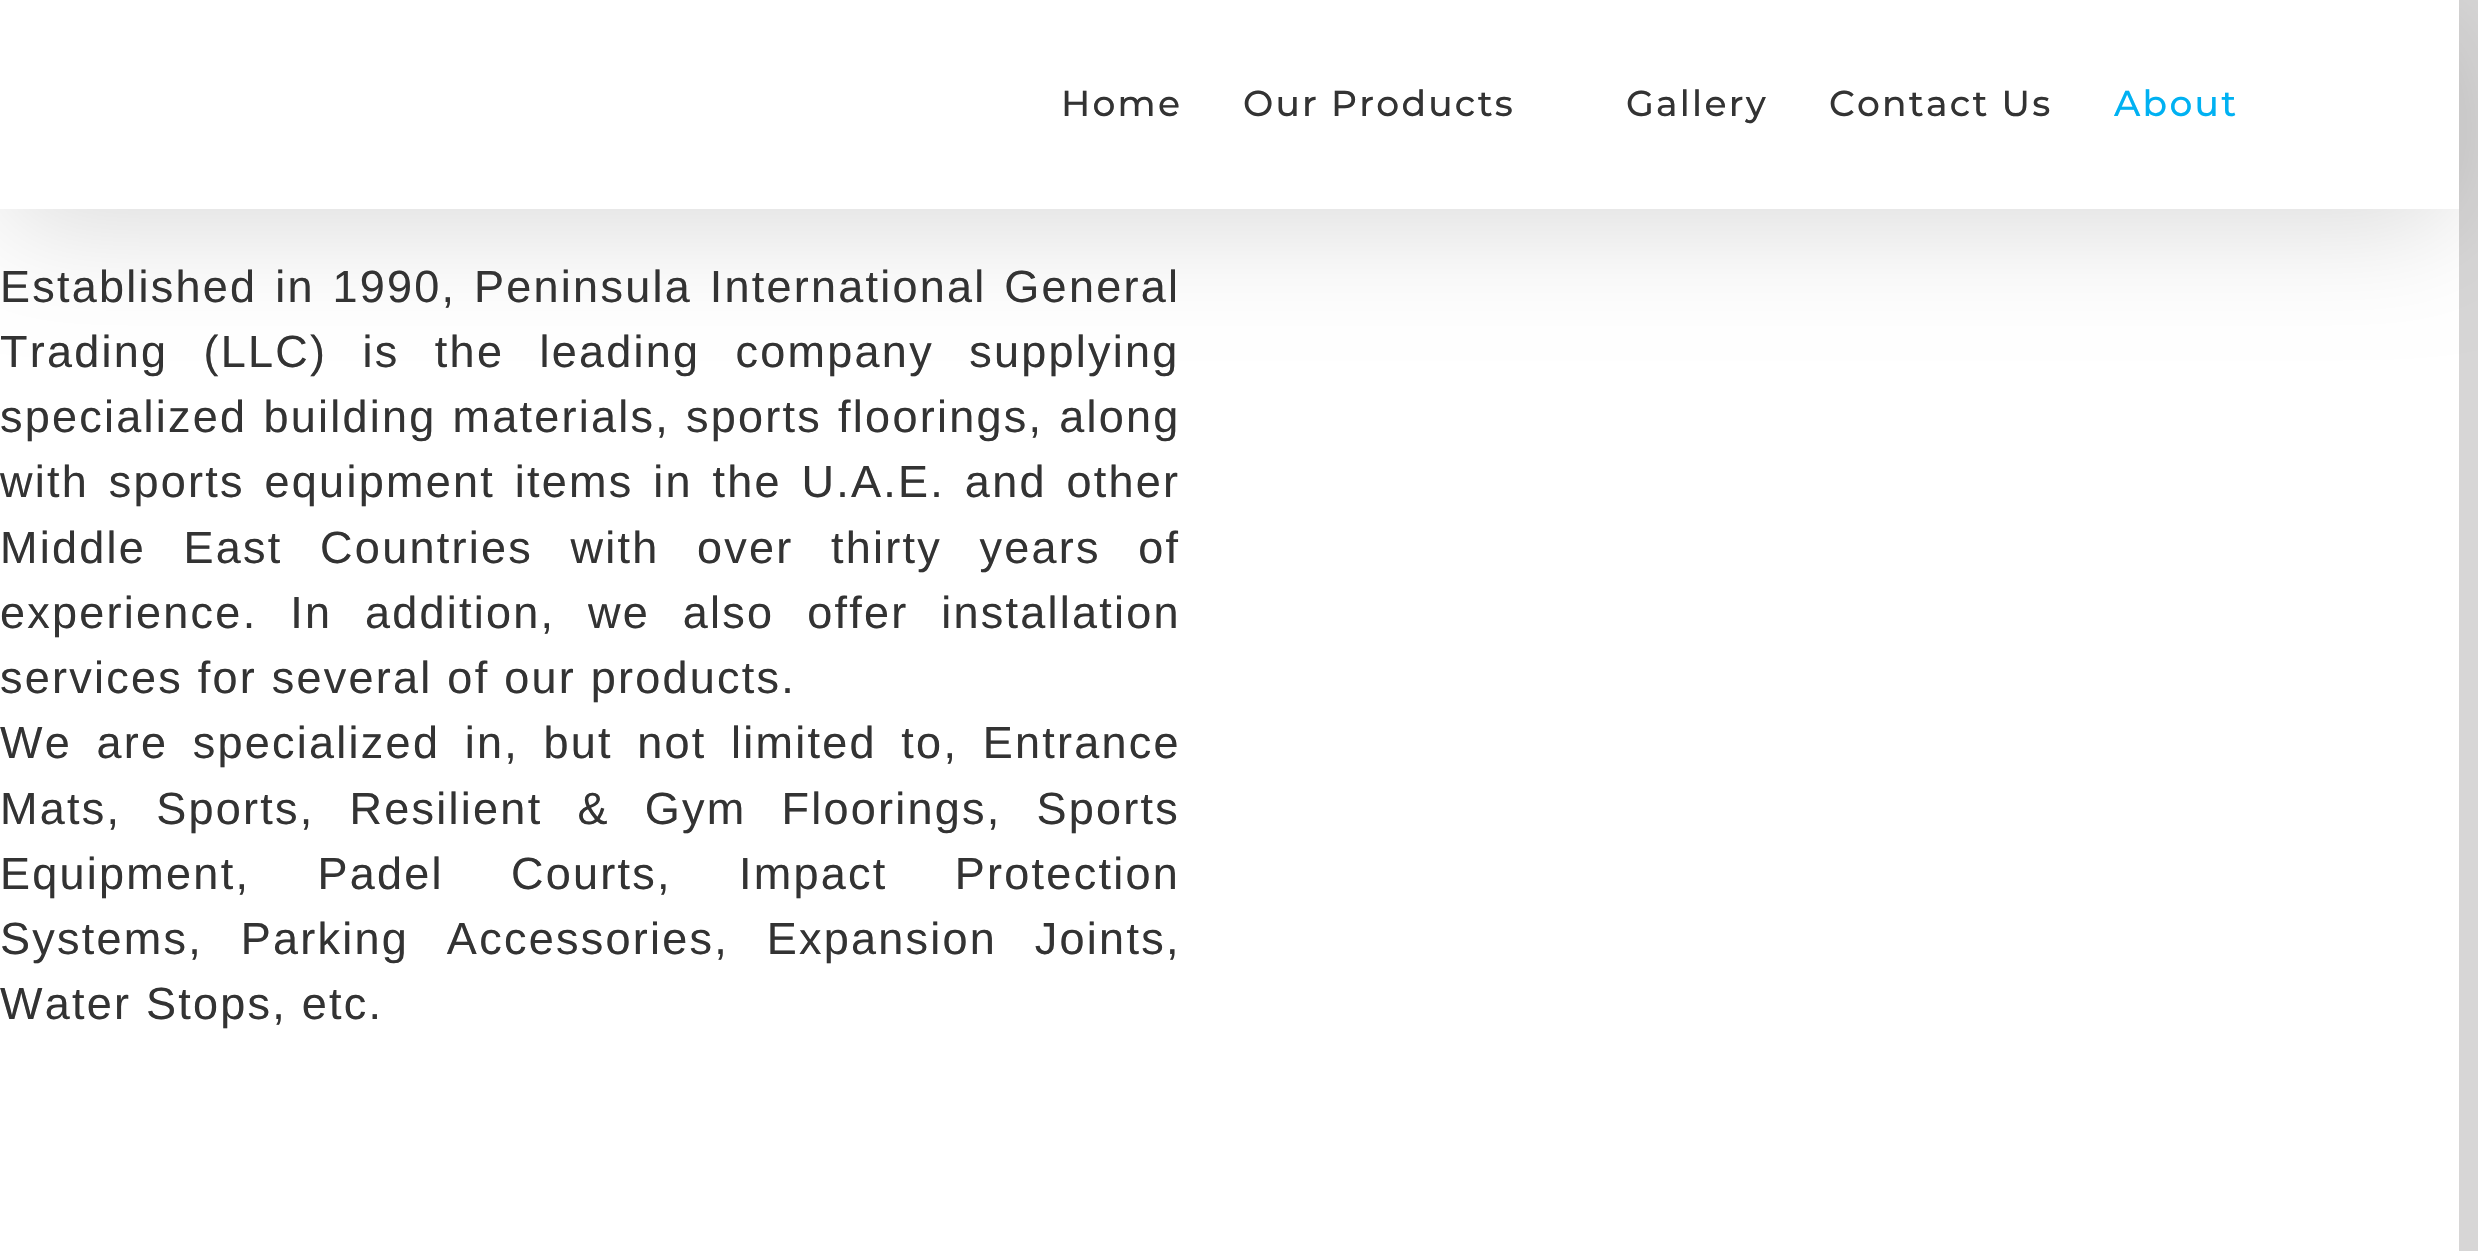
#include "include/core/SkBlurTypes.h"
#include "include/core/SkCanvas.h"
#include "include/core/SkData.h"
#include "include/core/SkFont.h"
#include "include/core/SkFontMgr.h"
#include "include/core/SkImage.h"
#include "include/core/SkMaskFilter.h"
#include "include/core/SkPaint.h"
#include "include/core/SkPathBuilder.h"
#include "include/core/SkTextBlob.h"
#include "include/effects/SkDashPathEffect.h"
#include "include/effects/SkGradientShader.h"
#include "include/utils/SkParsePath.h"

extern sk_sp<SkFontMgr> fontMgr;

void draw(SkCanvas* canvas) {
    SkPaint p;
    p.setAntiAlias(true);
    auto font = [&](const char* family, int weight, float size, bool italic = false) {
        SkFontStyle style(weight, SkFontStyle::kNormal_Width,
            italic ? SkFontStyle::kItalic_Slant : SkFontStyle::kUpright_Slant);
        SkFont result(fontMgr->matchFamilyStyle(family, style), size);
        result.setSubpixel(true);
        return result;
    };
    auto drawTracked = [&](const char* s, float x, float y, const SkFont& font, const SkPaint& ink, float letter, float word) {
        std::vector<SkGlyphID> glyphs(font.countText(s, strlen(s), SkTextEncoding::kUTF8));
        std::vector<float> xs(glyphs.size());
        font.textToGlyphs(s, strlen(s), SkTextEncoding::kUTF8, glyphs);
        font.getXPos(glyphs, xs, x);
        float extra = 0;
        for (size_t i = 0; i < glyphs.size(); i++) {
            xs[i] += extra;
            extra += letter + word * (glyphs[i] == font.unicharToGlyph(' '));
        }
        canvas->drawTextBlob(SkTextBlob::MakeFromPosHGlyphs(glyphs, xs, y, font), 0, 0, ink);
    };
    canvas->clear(0xFFD7D6D6);
    p.setColor(0xFFFFFFFF);
    canvas->drawRect(SkRect::MakeLTRB(0, 0, 2459, 1251), p);
    canvas->save();
    canvas->clipPath(SkPathBuilder(SkPathFillType::kEvenOdd).moveTo(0, 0).lineTo(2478, 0).lineTo(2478, 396).lineTo(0, 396).close().moveTo(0, 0).lineTo(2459, 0).lineTo(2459, 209).lineTo(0, 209).close().detach(), true);
    p.setColor(0x24000000);
    p.setMaskFilter(SkMaskFilter::MakeBlur(kNormal_SkBlurStyle, 56));
    canvas->drawRect(SkRect::MakeLTRB(5, 27, 2455, 227), p);
    p.setMaskFilter(nullptr);
    canvas->restore();
    auto font1 = font("Montserrat", 500, 36);
    p.setColor(0xFF333333);
    {
        const struct { const char* s; float x, y; } items[] = {
            {"Home", 1061, 116},
            {"Our Products", 1243, 116},
            {"Gallery", 1626, 116},
            {"Contact Us", 1829, 116},
        };
        for (auto [s, x, y] : items) {
            drawTracked(s, x, y, font1, p, 2.25f, 0);
        }
    }
    p.setColor(0xFF00B1F2);
    drawTracked("About", 2114, 116, font1, p, 2.25f, 0);
    auto font2 = font("Liberation Sans", 400, 45);
    p.setColor(0xFF333333);
    drawTracked("Established in 1990, Peninsula International General", 0, 302, font2, p, 2.25f, 3);
    drawTracked("Trading (LLC) is the leading company supplying", 0, 367, font2, p, 2.25f, 20.5f);
    drawTracked("specialized building materials, sports floorings, along", 0, 432, font2, p, 2.25f, 1.25f);
    drawTracked("with sports equipment items in the U.A.E. and other", 0, 497, font2, p, 2.25f, 5);
    drawTracked("Middle East Countries with over thirty years of", 0, 563, font2, p, 2.25f, 22.75f);
    drawTracked("experience. In addition, we also offer installation", 0, 628, font2, p, 2.25f, 18);
    drawTracked("services for several of our products.", 0, 693, font2, p, 2.25f, 0);
    drawTracked("We are specialized in, but not limited to, Entrance", 0, 758, font2, p, 2.25f, 9.75f);
    drawTracked("Mats, Sports, Resilient & Gym Floorings, Sports", 0, 824, font2, p, 2.25f, 20.25f);
    drawTracked("Equipment, Padel Courts, Impact Protection", 0, 889, font2, p, 2.25f, 52.5f);
    drawTracked("Systems, Parking Accessories, Expansion Joints,", 0, 954, font2, p, 2.25f, 23);
    drawTracked("Water Stops, etc.", 0, 1019, font2, p, 2.25f, 0);
}
